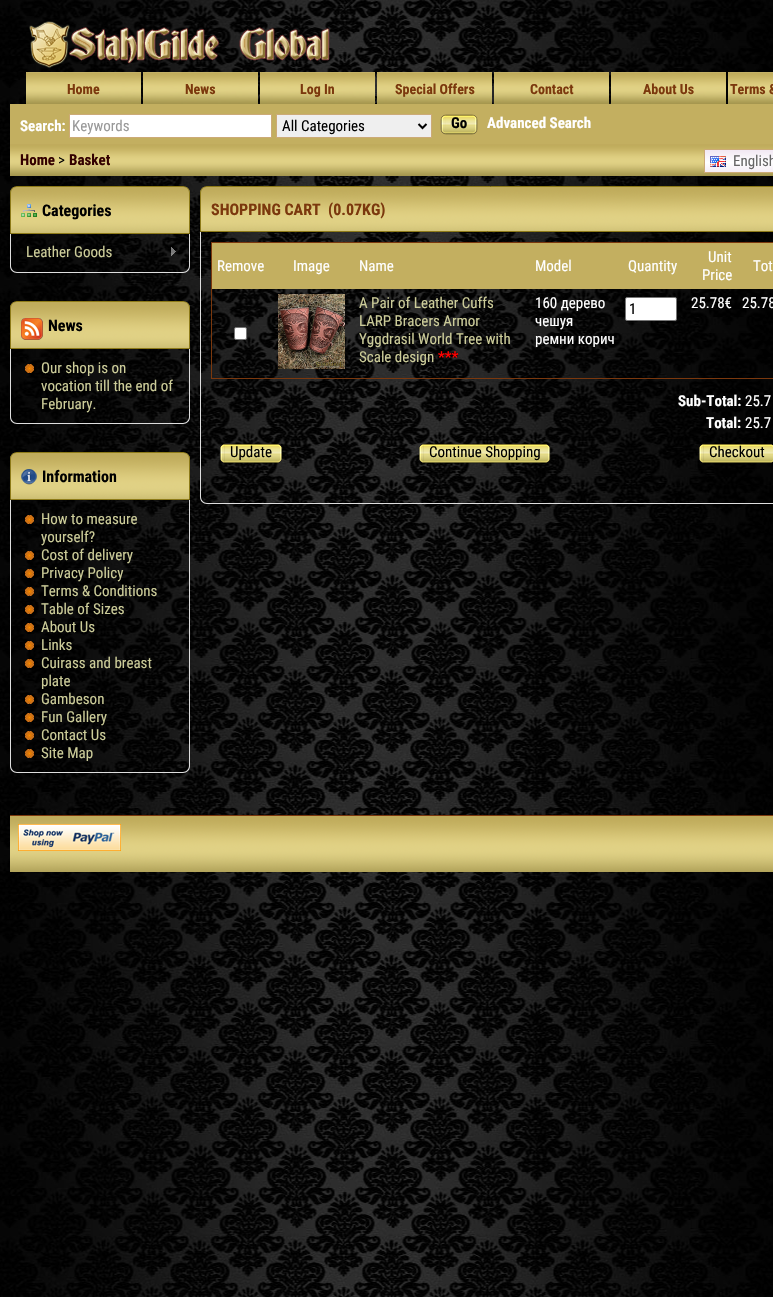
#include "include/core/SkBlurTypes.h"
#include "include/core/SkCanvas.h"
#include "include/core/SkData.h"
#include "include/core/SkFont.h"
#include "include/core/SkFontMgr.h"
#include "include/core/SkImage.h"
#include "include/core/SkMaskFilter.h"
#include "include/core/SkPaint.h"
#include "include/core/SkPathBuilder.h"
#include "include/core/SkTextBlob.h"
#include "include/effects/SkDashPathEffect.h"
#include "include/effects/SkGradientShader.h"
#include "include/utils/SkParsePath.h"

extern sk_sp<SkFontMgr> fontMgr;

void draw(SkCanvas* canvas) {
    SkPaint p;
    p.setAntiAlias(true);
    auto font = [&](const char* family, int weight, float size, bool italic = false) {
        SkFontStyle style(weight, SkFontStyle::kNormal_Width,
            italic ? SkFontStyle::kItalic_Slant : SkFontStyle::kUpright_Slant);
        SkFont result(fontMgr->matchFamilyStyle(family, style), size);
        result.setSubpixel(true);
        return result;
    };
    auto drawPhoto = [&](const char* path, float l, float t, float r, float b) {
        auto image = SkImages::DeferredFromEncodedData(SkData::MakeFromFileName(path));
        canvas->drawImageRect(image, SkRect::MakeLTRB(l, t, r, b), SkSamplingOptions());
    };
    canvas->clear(0xFFFFFFFF);
    drawPhoto("media/1.png", 0, 0, 773, 1297);
    drawPhoto("media/2.png", 29, 21, 330, 68);
    drawPhoto("media/3.png", 26, 72, 141, 104);
    auto font1 = font("Roboto Condensed", 700, 14);
    p.setColor(0xFF7B380D);
    canvas->drawString("Home", 67, 94, font1, p);
    drawPhoto("media/3.png", 143, 72, 258, 104);
    canvas->drawString("News", 185, 94, font1, p);
    drawPhoto("media/3.png", 260, 72, 375, 104);
    canvas->drawString("Log In", 300, 94, font1, p);
    drawPhoto("media/3.png", 377, 72, 492, 104);
    canvas->drawString("Special Offers", 395, 94, font1, p);
    drawPhoto("media/3.png", 494, 72, 609, 104);
    canvas->drawString("Contact", 530, 94, font1, p);
    drawPhoto("media/3.png", 611, 72, 726, 104);
    canvas->drawString("About Us", 643, 94, font1, p);
    drawPhoto("media/4.png", 728, 72, 773, 104);
    canvas->drawString("Terms &", 730, 94, font1, p);
    p.setColor(0xFFC3AF60);
    canvas->drawRect(SkRect::MakeLTRB(10, 104, 773, 144), p);
    auto font2 = font("Roboto Condensed", 700, 15);
    p.setColor(0xFFFFFFFF);
    canvas->drawString("Search:", 20, 131, font2, p);
    canvas->drawRect(SkRect::MakeLTRB(69.5f, 114.5f, 271.5f, 137.5f), p);
    p.setStyle(SkPaint::kStroke_Style);
    p.setStrokeWidth(1);
    p.setColor(0xFFCCAA77);
    canvas->drawRect(SkRect::MakeLTRB(69.5f, 114.5f, 271.5f, 137.5f), p);
    auto font3 = font("Roboto Condensed", 400, 15);
    p.setStyle(SkPaint::kFill_Style);
    p.setColor(0xFF999999);
    canvas->drawString("Keywords", 72, 131, font3, p);
    p.setColor(0xFFEFEFEF);
    canvas->drawRect(SkRect::MakeLTRB(276.5f, 114.5f, 431.5f, 137.5f), p);
    p.setStyle(SkPaint::kStroke_Style);
    p.setColor(0xFFCCAA77);
    canvas->drawRect(SkRect::MakeLTRB(276.5f, 114.5f, 431.5f, 137.5f), p);
    p.setStrokeWidth(2);
    p.setColor(0xFF000000);
    canvas->drawPath(SkPathBuilder().moveTo(418.5f, 124).lineTo(422.5f, 128).lineTo(426.5f, 124).detach(), p);
    p.setStyle(SkPaint::kFill_Style);
    canvas->drawString("All Categories", 282, 131, font3, p);
    drawPhoto("media/5.png", 440, 114, 446, 135);
    drawPhoto("media/6.png", 446, 114, 478, 135);
    canvas->drawString("Go", 451, 128, font2, p);
    p.setColor(0xFFFFFFFF);
    canvas->drawString("Advanced Search", 487, 128, font2, p);
    drawPhoto("media/7.png", 10, 144, 15, 176);
    drawPhoto("media/8.png", 15, 144, 773, 176);
    p.setColor(0xFF330000);
    canvas->drawString("Home", 20, 165, font2, p);
    p.setColor(0xFF000000);
    canvas->drawString(">", 58, 165, font3, p);
    p.setColor(0xFF330000);
    canvas->drawString("Basket", 69, 165, font2, p);
    drawPhoto("media/9.png", 705, 150, 773, 172);
    p.setStyle(SkPaint::kStroke_Style);
    p.setStrokeWidth(1);
    p.setColor(0xFFCCAA77);
    canvas->drawRect(SkRect::MakeLTRB(704.5f, 149.5f, 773.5f, 172.5f), p);
    drawPhoto("media/10.png", 710, 156, 726, 167);
    p.setStyle(SkPaint::kFill_Style);
    p.setColor(0xFF666666);
    canvas->drawString("English", 733, 166, font3, p);
    drawPhoto("media/11.png", 10, 187, 190, 233);
    p.setStyle(SkPaint::kStroke_Style);
    p.setColor(0xFF8D7A18);
    canvas->drawPath(SkPathBuilder().moveTo(17, 186.5f).lineTo(183, 186.5f).cubicTo(186.5f, 186.5f, 189.5f, 189.5f, 189.5f, 193).lineTo(189.5f, 233.5f).lineTo(10.5f, 233.5f).lineTo(10.5f, 193).cubicTo(10.5f, 189.5f, 13.5f, 186.5f, 17, 186.5f).close().detach(), p);
    drawPhoto("media/12.png", 21, 204, 37, 217);
    auto font4 = font("Roboto Condensed", 700, 16);
    p.setStyle(SkPaint::kFill_Style);
    p.setColor(0xFF000000);
    canvas->drawString("Categories", 42, 216, font4, p);
    p.setColor(0xFFDEDEDE);
    canvas->drawPath(SkPathBuilder(SkPathFillType::kEvenOdd).moveTo(10, 234).lineTo(190, 234).lineTo(190, 266).cubicTo(190, 270, 187, 273, 183, 273).lineTo(17, 273).cubicTo(13, 273, 10, 270, 10, 266).close().moveTo(11, 234).lineTo(189, 234).lineTo(189, 266).cubicTo(189, 269, 186, 272, 183, 272).lineTo(17, 272).cubicTo(14, 272, 11, 269, 11, 266).close().detach(), p);
    p.setColor(0xFFCCCC99);
    canvas->drawString("Leather Goods", 26, 257, font3, p);
    drawPhoto("media/13.png", 171, 247, 176, 256);
    drawPhoto("media/14.png", 10, 302, 190, 348);
    p.setStyle(SkPaint::kStroke_Style);
    p.setColor(0xFF8D7A18);
    canvas->drawPath(SkPathBuilder().moveTo(17, 301.5f).lineTo(183, 301.5f).cubicTo(186.5f, 301.5f, 189.5f, 304.5f, 189.5f, 308).lineTo(189.5f, 348.5f).lineTo(10.5f, 348.5f).lineTo(10.5f, 308).cubicTo(10.5f, 304.5f, 13.5f, 301.5f, 17, 301.5f).close().detach(), p);
    drawPhoto("media/15.png", 21, 318, 43, 340);
    p.setStyle(SkPaint::kFill_Style);
    p.setColor(0xFF000000);
    canvas->drawString("News", 48, 331, font4, p);
    p.setColor(0xFFDEDEDE);
    canvas->drawPath(SkPathBuilder(SkPathFillType::kEvenOdd).moveTo(10, 349).lineTo(190, 349).lineTo(190, 417).cubicTo(190, 421, 187, 424, 183, 424).lineTo(17, 424).cubicTo(13, 424, 10, 421, 10, 417).close().moveTo(11, 349).lineTo(189, 349).lineTo(189, 417).cubicTo(189, 420, 186, 423, 183, 423).lineTo(17, 423).cubicTo(14, 423, 11, 420, 11, 417).close().detach(), p);
    drawPhoto("media/16.png", 25, 364, 34, 373);
    p.setColor(0xFFCCCC99);
    {
        const struct { const char* s; float x, y; } items[] = {
            {"Our shop is on", 41, 373},
            {"vocation till the end of", 41, 391},
            {"February.", 41, 409},
        };
        for (auto [s, x, y] : items) {
            canvas->drawString(s, x, y, font3, p);
        }
    }
    drawPhoto("media/17.png", 10, 453, 190, 499);
    p.setStyle(SkPaint::kStroke_Style);
    p.setColor(0xFF8D7A18);
    canvas->drawPath(SkPathBuilder().moveTo(17, 452.5f).lineTo(183, 452.5f).cubicTo(186.5f, 452.5f, 189.5f, 455.5f, 189.5f, 459).lineTo(189.5f, 499.5f).lineTo(10.5f, 499.5f).lineTo(10.5f, 459).cubicTo(10.5f, 455.5f, 13.5f, 452.5f, 17, 452.5f).close().detach(), p);
    drawPhoto("media/18.png", 21, 469, 37, 485);
    p.setStyle(SkPaint::kFill_Style);
    p.setColor(0xFF000000);
    canvas->drawString("Information", 42, 482, font4, p);
    p.setColor(0xFFDEDEDE);
    canvas->drawPath(SkPathBuilder(SkPathFillType::kEvenOdd).moveTo(10, 500).lineTo(190, 500).lineTo(190, 766).cubicTo(190, 770, 187, 773, 183, 773).lineTo(17, 773).cubicTo(13, 773, 10, 770, 10, 766).close().moveTo(11, 500).lineTo(189, 500).lineTo(189, 766).cubicTo(189, 769, 186, 772, 183, 772).lineTo(17, 772).cubicTo(14, 772, 11, 769, 11, 766).close().detach(), p);
    drawPhoto("media/19.png", 25, 515, 34, 524);
    p.setColor(0xFFCCCC99);
    canvas->drawString("How to measure", 41, 524, font3, p);
    canvas->drawString("yourself?", 41, 542, font3, p);
    drawPhoto("media/20.png", 25, 551, 34, 560);
    canvas->drawString("Сost of delivery", 41, 560, font3, p);
    drawPhoto("media/21.png", 25, 569, 34, 578);
    canvas->drawString("Privacy Policy", 41, 578, font3, p);
    drawPhoto("media/22.png", 25, 587, 34, 596);
    canvas->drawString("Terms & Conditions", 41, 596, font3, p);
    drawPhoto("media/23.png", 25, 605, 34, 614);
    canvas->drawString("Table of Sizes", 41, 614, font3, p);
    drawPhoto("media/24.png", 25, 623, 34, 632);
    canvas->drawString("About Us", 41, 632, font3, p);
    drawPhoto("media/25.png", 25, 641, 34, 650);
    canvas->drawString("Links", 41, 650, font3, p);
    drawPhoto("media/26.png", 25, 659, 34, 668);
    canvas->drawString("Cuirass and breast", 41, 668, font3, p);
    canvas->drawString("plate", 41, 686, font3, p);
    drawPhoto("media/27.png", 25, 695, 34, 704);
    canvas->drawString("Gambeson", 41, 704, font3, p);
    drawPhoto("media/28.png", 25, 713, 34, 722);
    canvas->drawString("Fun Gallery", 41, 722, font3, p);
    drawPhoto("media/29.png", 25, 731, 34, 740);
    canvas->drawString("Contact Us", 41, 740, font3, p);
    drawPhoto("media/30.png", 25, 749, 34, 758);
    canvas->drawString("Site Map", 41, 758, font3, p);
    drawPhoto("media/31.png", 200, 187, 773, 231);
    p.setStyle(SkPaint::kStroke_Style);
    p.setColor(0xFF8D7A18);
    canvas->drawPath(SkPathBuilder().moveTo(207, 186.5f).lineTo(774, 186.5f).cubicTo(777.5f, 186.5f, 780.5f, 189.5f, 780.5f, 193).lineTo(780.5f, 231.5f).lineTo(200.5f, 231.5f).lineTo(200.5f, 193).cubicTo(200.5f, 189.5f, 203.5f, 186.5f, 207, 186.5f).close().detach(), p);
    p.setStyle(SkPaint::kFill_Style);
    p.setColor(0xFF7B380D);
    canvas->drawString("SHOPPING CART", 211, 215, font4, p);
    canvas->drawString("(0.07KG)", 328, 215, font4, p);
    p.setColor(0xFFDEDEDE);
    canvas->drawPath(SkPathBuilder(SkPathFillType::kEvenOdd).moveTo(200, 232).lineTo(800, 232).lineTo(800, 497).cubicTo(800, 501, 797, 504, 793, 504).lineTo(207, 504).cubicTo(203, 504, 200, 501, 200, 497).close().moveTo(201, 232).lineTo(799, 232).lineTo(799, 497).cubicTo(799, 500, 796, 503, 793, 503).lineTo(207, 503).cubicTo(204, 503, 201, 500, 201, 497).close().detach(), p);
    {
        const struct { float l, t, r, b; SkColor color; } items[] = {
            {211, 242, 773, 243, 0xFF7B380D},
            {211, 378, 773, 379, 0xFF7B380D},
            {211, 242, 212, 379, 0xFF7B380D},
            {212, 243, 773, 289, 0xFFC3AF60},
        };
        for (auto [l, t, r, b, color] : items) {
            p.setColor(color);
            canvas->drawRect(SkRect::MakeLTRB(l, t, r, b), p);
        }
    }
    p.setColor(0xFFFFFFFF);
    {
        const struct { const char* s; float x, y; } items[] = {
            {"Remove", 217, 271},
            {"Image", 293, 271},
            {"Name", 359, 271},
            {"Model", 535, 271},
            {"Quantity", 628, 271},
            {"Unit", 708, 262},
            {"Price", 702, 280},
            {"Tot", 753, 271},
        };
        for (auto [s, x, y] : items) {
            canvas->drawString(s, x, y, font3, p);
        }
    }
    drawPhoto("media/32.png", 278, 294, 345, 369);
    p.setColor(0xFFCCCC99);
    {
        const struct { const char* s; float x, y; } items[] = {
            {"A Pair of Leather Cuffs", 359, 308},
            {"LARP Bracers Armor", 359, 326},
            {"Yggdrasil World Tree with", 359, 344},
            {"Scale design", 359, 362},
        };
        for (auto [s, x, y] : items) {
            canvas->drawString(s, x, y, font3, p);
        }
    }
    p.setColor(0xFFFF0000);
    canvas->drawString("***", 438, 362, font2, p);
    p.setColor(0xFFFFFFFF);
    {
        const struct { const char* s; float x, y; } items[] = {
            {"160 дерево", 535, 308},
            {"чешуя", 535, 326},
            {"ремни корич", 535, 344},
        };
        for (auto [s, x, y] : items) {
            canvas->drawString(s, x, y, font3, p);
        }
    }
    canvas->drawRoundRect(SkRect::MakeLTRB(625.5f, 297.5f, 676.5f, 320.5f), 1.5f, 1.5f, p);
    p.setStyle(SkPaint::kStroke_Style);
    p.setColor(0xFF767676);
    canvas->drawRoundRect(SkRect::MakeLTRB(625.5f, 297.5f, 676.5f, 320.5f), 1.5f, 1.5f, p);
    p.setStyle(SkPaint::kFill_Style);
    p.setColor(0xFF000000);
    canvas->drawString("1", 629, 314, font3, p);
    p.setColor(0xFFFFFFFF);
    canvas->drawString("25.78€", 691, 308, font3, p);
    canvas->drawString("25.78", 742, 308, font3, p);
    canvas->drawRoundRect(SkRect::MakeLTRB(234.5f, 327.5f, 246.5f, 339.5f), 1.5f, 1.5f, p);
    p.setStyle(SkPaint::kStroke_Style);
    p.setColor(0xFF767676);
    canvas->drawRoundRect(SkRect::MakeLTRB(234.5f, 327.5f, 246.5f, 339.5f), 1.5f, 1.5f, p);
    p.setStyle(SkPaint::kFill_Style);
    p.setColor(0xFFFFFFFF);
    canvas->drawString("Sub-Total:", 678, 406, font2, p);
    canvas->drawString("25.7", 745, 406, font3, p);
    canvas->drawString("Total:", 706, 428, font2, p);
    canvas->drawString("25.7", 745, 428, font3, p);
    drawPhoto("media/33.png", 219, 444, 225, 463);
    drawPhoto("media/34.png", 225, 443, 282, 464);
    p.setColor(0xFF000000);
    canvas->drawString("Update", 230, 457, font3, p);
    drawPhoto("media/35.png", 418, 443, 424, 463);
    drawPhoto("media/36.png", 424, 443, 551, 464);
    canvas->drawString("Continue Shopping", 429, 457, font3, p);
    drawPhoto("media/37.png", 699, 444, 704, 463);
    drawPhoto("media/38.png", 704, 444, 773, 463);
    canvas->drawString("Checkout", 709, 457, font3, p);
    drawPhoto("media/39.png", 10, 816, 773, 872);
    p.setColor(0xFF7B380D);
    canvas->drawRect(SkRect::MakeLTRB(10, 815, 773, 816), p);
    drawPhoto("media/40.png", 18, 824, 121, 851);
}
